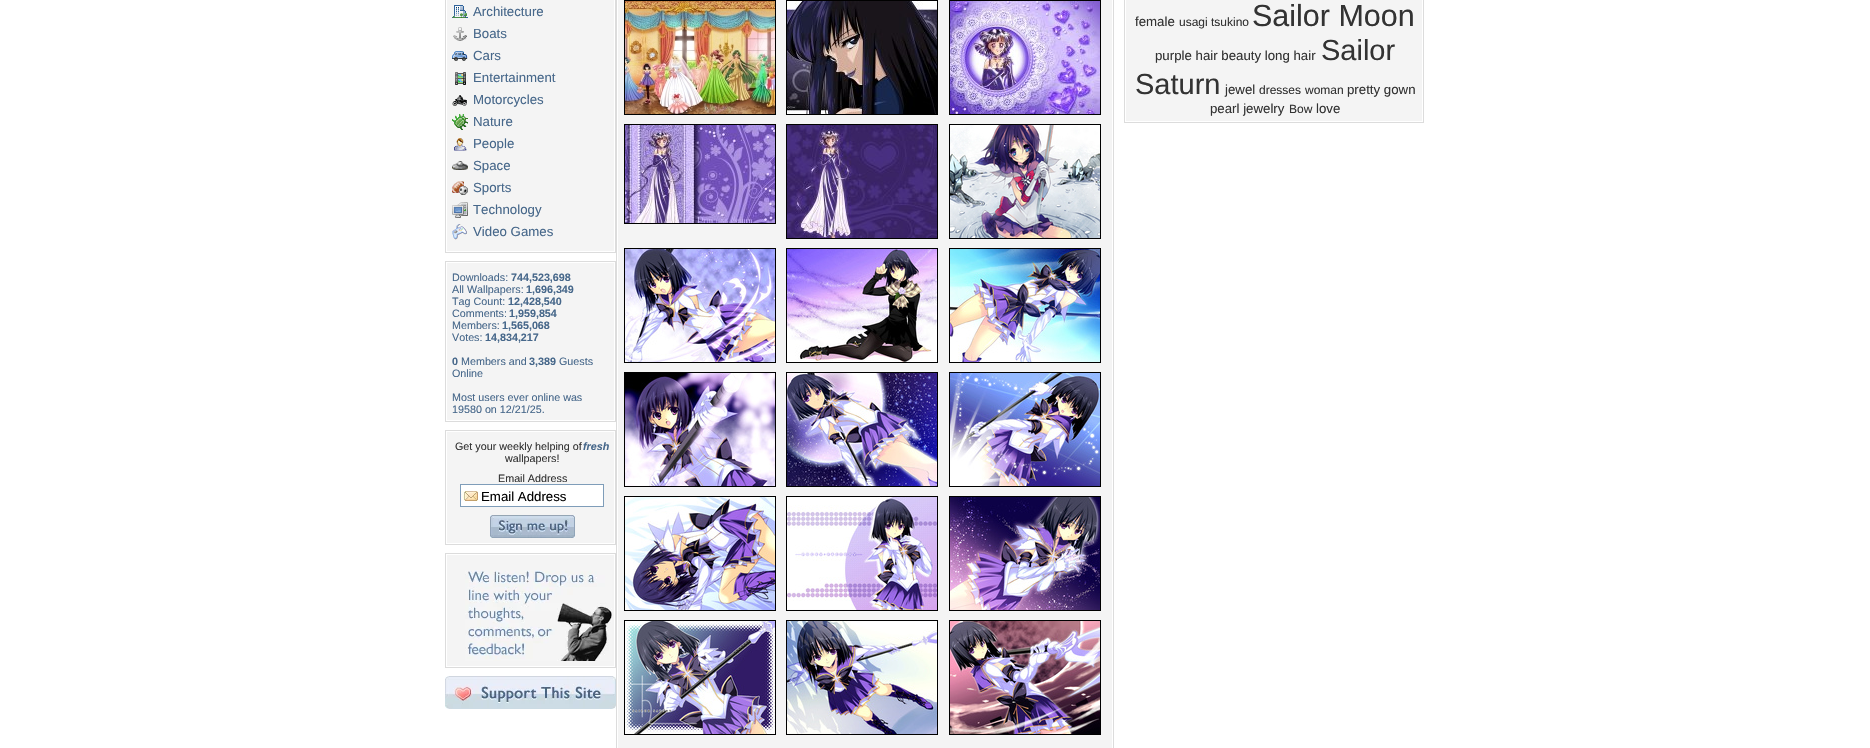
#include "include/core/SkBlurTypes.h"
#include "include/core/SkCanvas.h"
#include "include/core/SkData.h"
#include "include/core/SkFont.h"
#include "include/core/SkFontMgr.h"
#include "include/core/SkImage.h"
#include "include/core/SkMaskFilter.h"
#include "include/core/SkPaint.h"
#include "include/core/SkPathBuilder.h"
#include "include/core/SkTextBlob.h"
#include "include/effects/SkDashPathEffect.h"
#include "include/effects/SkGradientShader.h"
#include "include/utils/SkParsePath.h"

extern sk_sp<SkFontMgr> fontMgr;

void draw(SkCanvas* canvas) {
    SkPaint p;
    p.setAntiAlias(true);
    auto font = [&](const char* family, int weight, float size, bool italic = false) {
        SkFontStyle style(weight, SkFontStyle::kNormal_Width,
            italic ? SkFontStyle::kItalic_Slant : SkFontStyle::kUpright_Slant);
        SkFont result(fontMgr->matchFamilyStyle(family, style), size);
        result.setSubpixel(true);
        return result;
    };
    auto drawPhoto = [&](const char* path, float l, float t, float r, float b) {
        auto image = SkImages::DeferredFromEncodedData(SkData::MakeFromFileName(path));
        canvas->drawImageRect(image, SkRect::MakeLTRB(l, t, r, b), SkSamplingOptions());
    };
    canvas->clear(0xFFFFFFFF);
    p.setStyle(SkPaint::kStroke_Style);
    p.setStrokeWidth(1);
    p.setColor(0xFFDCDCDC);
    canvas->drawRect(SkRect::MakeLTRB(445.5f, -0.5f, 615.5f, 252.5f), p);
    p.setStyle(SkPaint::kFill_Style);
    p.setColor(0xFFF4F4F4);
    canvas->drawRect(SkRect::MakeLTRB(447, 0, 614, 251), p);
    drawPhoto("media/1.png", 452, 5, 468, 18);
    auto font1 = font("Liberation Sans", 400, 13.25f);
    p.setColor(0xFF46678A);
    canvas->drawString("Architecture", 473, 16, font1, p);
    drawPhoto("media/2.png", 453, 27, 467, 41);
    canvas->drawString("Boats", 473, 38, font1, p);
    drawPhoto("media/3.png", 452, 51, 468, 61);
    canvas->drawString("Cars", 473, 60, font1, p);
    drawPhoto("media/4.png", 455, 72, 466, 85);
    canvas->drawString("Entertainment", 473, 82, font1, p);
    drawPhoto("media/5.png", 452, 94, 468, 106);
    canvas->drawString("Motorcycles", 473, 104, font1, p);
    drawPhoto("media/6.png", 452, 114, 468, 130);
    canvas->drawString("Nature", 473, 126, font1, p);
    drawPhoto("media/7.png", 454, 138, 467, 151);
    canvas->drawString("People", 473, 148, font1, p);
    drawPhoto("media/8.png", 452, 161, 468, 170);
    canvas->drawString("Space", 473, 170, font1, p);
    drawPhoto("media/9.png", 452, 181, 468, 195);
    canvas->drawString("Sports", 473, 192, font1, p);
    drawPhoto("media/10.png", 452, 202, 468, 218);
    canvas->drawString("Technology", 473, 214, font1, p);
    drawPhoto("media/11.png", 452, 224, 467, 240);
    canvas->drawString("Video Games", 473, 236, font1, p);
    p.setStyle(SkPaint::kStroke_Style);
    p.setColor(0xFFDCDCDC);
    canvas->drawRect(SkRect::MakeLTRB(445.5f, 261.5f, 615.5f, 421.5f), p);
    p.setStyle(SkPaint::kFill_Style);
    p.setColor(0xFFF4F4F4);
    canvas->drawRect(SkRect::MakeLTRB(447, 263, 614, 420), p);
    auto font2 = font("Liberation Sans", 400, 10.75f);
    p.setColor(0xFF46678A);
    canvas->drawString("Downloads:", 452, 281, font2, p);
    auto font3 = font("Liberation Sans", 700, 10.75f);
    canvas->drawString("744,523,698", 511, 281, font3, p);
    canvas->drawString("All Wallpapers:", 452, 293, font2, p);
    canvas->drawString("1,696,349", 526, 293, font3, p);
    canvas->drawString("Tag Count:", 452, 305, font2, p);
    canvas->drawString("12,428,540", 508, 305, font3, p);
    canvas->drawString("Comments:", 452, 317, font2, p);
    canvas->drawString("1,959,854", 509, 317, font3, p);
    canvas->drawString("Members:", 452, 329, font2, p);
    canvas->drawString("1,565,068", 502, 329, font3, p);
    canvas->drawString("Votes:", 452, 341, font2, p);
    canvas->drawString("14,834,217", 485, 341, font3, p);
    canvas->drawString("0", 452, 365, font3, p);
    canvas->drawString("Members and", 461, 365, font2, p);
    canvas->drawString("3,389", 529, 365, font3, p);
    {
        const struct { const char* s; float x, y; } items[] = {
            {"Guests", 559, 365},
            {"Online", 452, 377},
            {"Most users ever online was", 452, 401},
            {"19580 on 12/21/25.", 452, 413},
        };
        for (auto [s, x, y] : items) {
            canvas->drawString(s, x, y, font2, p);
        }
    }
    p.setStyle(SkPaint::kStroke_Style);
    p.setColor(0xFFDCDCDC);
    canvas->drawRect(SkRect::MakeLTRB(445.5f, 430.5f, 615.5f, 544.5f), p);
    p.setStyle(SkPaint::kFill_Style);
    p.setColor(0xFFF4F4F4);
    canvas->drawRect(SkRect::MakeLTRB(447, 432, 614, 543), p);
    p.setColor(0xFF333333);
    canvas->drawString("Get your weekly helping of", 455, 450, font2, p);
    auto font4 = font("Liberation Sans", 700, 10.75f, true);
    p.setColor(0xFF46678A);
    canvas->drawString("fresh", 583, 450, font4, p);
    p.setColor(0xFF333333);
    canvas->drawString("wallpapers!", 505, 462, font2, p);
    canvas->drawString("Email Address", 498, 482, font2, p);
    p.setColor(0xFFFFFFFF);
    canvas->drawRect(SkRect::MakeLTRB(461, 485, 603, 506), p);
    drawPhoto("media/12.png", 461, 491, 478, 501);
    p.setStyle(SkPaint::kStroke_Style);
    p.setColor(0xFF7F9DB9);
    canvas->drawRect(SkRect::MakeLTRB(460.5f, 484.5f, 603.5f, 506.5f), p);
    p.setStyle(SkPaint::kFill_Style);
    p.setColor(0xFF000000);
    canvas->drawString("Email Address", 481, 501, font1, p);
    drawPhoto("media/13.png", 490, 515, 575, 538);
    p.setStyle(SkPaint::kStroke_Style);
    p.setColor(0xFFDCDCDC);
    canvas->drawRect(SkRect::MakeLTRB(445.5f, 553.5f, 615.5f, 667.5f), p);
    p.setStyle(SkPaint::kFill_Style);
    p.setColor(0xFFF4F4F4);
    canvas->drawRect(SkRect::MakeLTRB(447, 555, 614, 666), p);
    drawPhoto("media/14.png", 465, 570, 612, 661);
    drawPhoto("media/15.png", 445, 676, 616, 709);
    p.setStyle(SkPaint::kStroke_Style);
    p.setColor(0xFFDCDCDC);
    canvas->drawRect(SkRect::MakeLTRB(616.5f, -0.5f, 1113.5f, 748.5f), p);
    p.setStyle(SkPaint::kFill_Style);
    p.setColor(0xFFF4F4F4);
    canvas->drawRect(SkRect::MakeLTRB(618, 0, 1112, 748), p);
    p.setStyle(SkPaint::kStroke_Style);
    p.setColor(0xFF000000);
    canvas->drawRect(SkRect::MakeLTRB(624.5f, 0.5f, 775.5f, 114.5f), p);
    drawPhoto("media/16.png", 625, 1, 775, 114);
    canvas->drawRect(SkRect::MakeLTRB(786.5f, 0.5f, 937.5f, 114.5f), p);
    drawPhoto("media/17.png", 787, 1, 937, 114);
    canvas->drawRect(SkRect::MakeLTRB(949.5f, 0.5f, 1100.5f, 114.5f), p);
    drawPhoto("media/18.png", 950, 1, 1100, 114);
    canvas->drawRect(SkRect::MakeLTRB(624.5f, 124.5f, 775.5f, 223.5f), p);
    drawPhoto("media/19.png", 625, 125, 775, 223);
    canvas->drawRect(SkRect::MakeLTRB(786.5f, 124.5f, 937.5f, 238.5f), p);
    drawPhoto("media/20.png", 787, 125, 937, 238);
    canvas->drawRect(SkRect::MakeLTRB(949.5f, 124.5f, 1100.5f, 238.5f), p);
    drawPhoto("media/21.png", 950, 125, 1100, 238);
    canvas->drawRect(SkRect::MakeLTRB(624.5f, 248.5f, 775.5f, 362.5f), p);
    drawPhoto("media/22.png", 625, 249, 775, 362);
    canvas->drawRect(SkRect::MakeLTRB(786.5f, 248.5f, 937.5f, 362.5f), p);
    drawPhoto("media/23.png", 787, 249, 937, 362);
    canvas->drawRect(SkRect::MakeLTRB(949.5f, 248.5f, 1100.5f, 362.5f), p);
    drawPhoto("media/24.png", 950, 249, 1100, 362);
    canvas->drawRect(SkRect::MakeLTRB(624.5f, 372.5f, 775.5f, 486.5f), p);
    drawPhoto("media/25.png", 625, 373, 775, 486);
    canvas->drawRect(SkRect::MakeLTRB(786.5f, 372.5f, 937.5f, 486.5f), p);
    drawPhoto("media/26.png", 787, 373, 937, 486);
    canvas->drawRect(SkRect::MakeLTRB(949.5f, 372.5f, 1100.5f, 486.5f), p);
    drawPhoto("media/27.png", 950, 373, 1100, 486);
    canvas->drawRect(SkRect::MakeLTRB(624.5f, 496.5f, 775.5f, 610.5f), p);
    drawPhoto("media/28.png", 625, 497, 775, 610);
    canvas->drawRect(SkRect::MakeLTRB(786.5f, 496.5f, 937.5f, 610.5f), p);
    drawPhoto("media/29.png", 787, 497, 937, 610);
    canvas->drawRect(SkRect::MakeLTRB(949.5f, 496.5f, 1100.5f, 610.5f), p);
    drawPhoto("media/30.png", 950, 497, 1100, 610);
    canvas->drawRect(SkRect::MakeLTRB(624.5f, 620.5f, 775.5f, 734.5f), p);
    drawPhoto("media/31.png", 625, 621, 775, 734);
    canvas->drawRect(SkRect::MakeLTRB(786.5f, 620.5f, 937.5f, 734.5f), p);
    drawPhoto("media/32.png", 787, 621, 937, 734);
    canvas->drawRect(SkRect::MakeLTRB(949.5f, 620.5f, 1100.5f, 734.5f), p);
    drawPhoto("media/33.png", 950, 621, 1100, 734);
    p.setColor(0xFFDCDCDC);
    canvas->drawRect(SkRect::MakeLTRB(1124.5f, -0.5f, 1423.5f, 122.5f), p);
    p.setStyle(SkPaint::kFill_Style);
    p.setColor(0xFFF4F4F4);
    canvas->drawRect(SkRect::MakeLTRB(1126, 0, 1422, 121), p);
    p.setColor(0xFF333333);
    canvas->drawString("female", 1135, 26, font1, p);
    auto font5 = font("Liberation Sans", 400, 12);
    canvas->drawString("usagi tsukino", 1179, 26, font5, p);
    auto font6 = font("Liberation Sans", 400, 30.5f);
    canvas->drawString("Sailor Moon", 1252, 26, font6, p);
    canvas->drawString("purple hair beauty long hair", 1155, 60, font1, p);
    auto font7 = font("Liberation Sans", 400, 29);
    canvas->drawString("Sailor", 1321, 60, font7, p);
    canvas->drawString("Saturn", 1135, 94, font7, p);
    canvas->drawString("jewel", 1225, 94, font1, p);
    canvas->drawString("dresses", 1259, 94, font5, p);
    canvas->drawString("woman", 1305, 94, font5, p);
    canvas->drawString("pretty gown", 1347, 94, font1, p);
    canvas->drawString("pearl jewelry", 1210, 113, font1, p);
    canvas->drawString("Bow", 1289, 113, font5, p);
    canvas->drawString("love", 1316, 113, font1, p);
}
